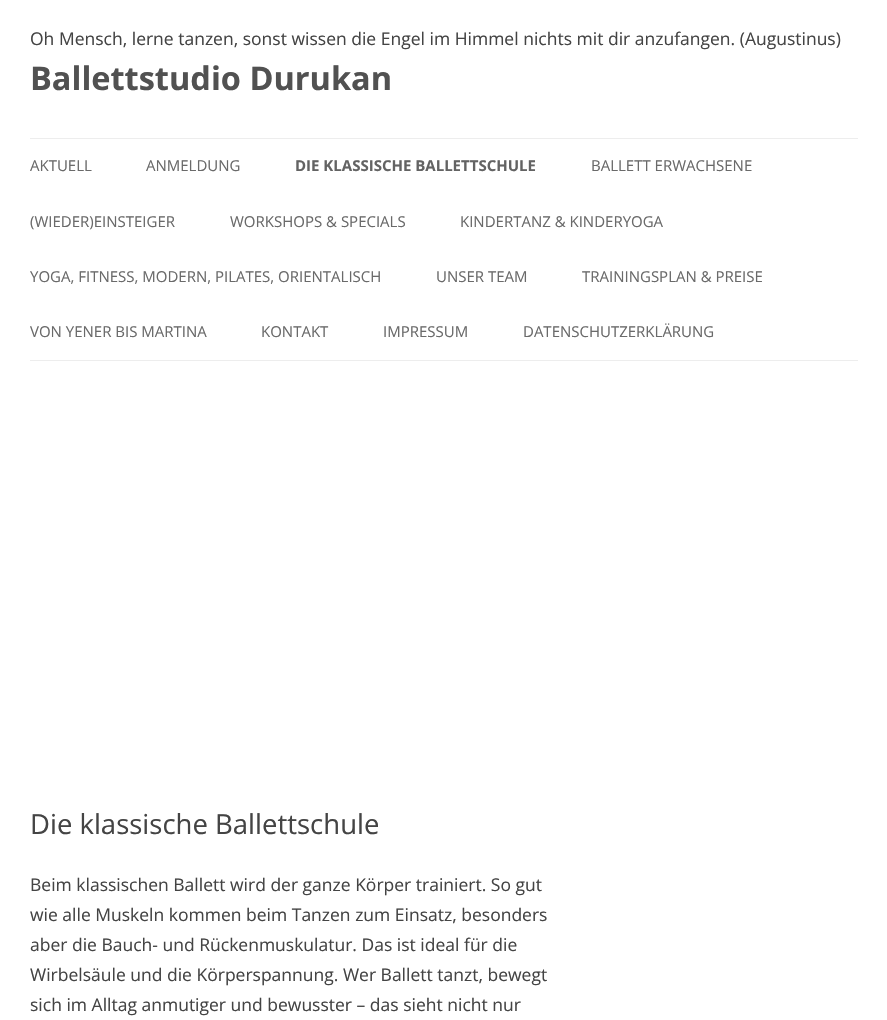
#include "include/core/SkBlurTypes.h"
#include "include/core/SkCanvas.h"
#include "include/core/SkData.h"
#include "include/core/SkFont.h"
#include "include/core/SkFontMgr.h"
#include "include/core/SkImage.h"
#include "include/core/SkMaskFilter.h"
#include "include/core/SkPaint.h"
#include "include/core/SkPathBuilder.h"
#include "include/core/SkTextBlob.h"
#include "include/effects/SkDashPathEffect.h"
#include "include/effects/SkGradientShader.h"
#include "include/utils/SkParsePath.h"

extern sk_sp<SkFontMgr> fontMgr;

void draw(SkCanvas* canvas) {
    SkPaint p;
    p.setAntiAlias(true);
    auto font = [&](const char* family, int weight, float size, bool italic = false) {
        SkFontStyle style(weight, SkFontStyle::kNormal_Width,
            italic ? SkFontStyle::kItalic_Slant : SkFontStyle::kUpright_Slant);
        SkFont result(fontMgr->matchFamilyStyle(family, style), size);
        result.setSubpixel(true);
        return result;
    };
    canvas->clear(0xFFFFFFFF);
    auto font1 = font("Open Sans", 400, 17.5f);
    p.setColor(0xFF444444);
    canvas->drawString("Oh Mensch, lerne tanzen, sonst wissen die Engel im Himmel nichts mit dir anzufangen. (Augustinus)", 30, 45, font1, p);
    auto font2 = font("Open Sans", 700, 32.5f);
    p.setColor(0xFF515151);
    canvas->drawString("Ballettstudio Durukan", 30, 90, font2, p);
    p.setColor(0xFFEDEDED);
    canvas->drawRect(SkRect::MakeLTRB(30, 138, 858, 139), p);
    canvas->drawRect(SkRect::MakeLTRB(30, 360, 858, 361), p);
    auto font3 = font("Open Sans", 400, 15);
    p.setColor(0xFF6A6A6A);
    canvas->drawString("AKTUELL", 30, 171, font3, p);
    canvas->drawString("ANMELDUNG", 146, 171, font3, p);
    auto font4 = font("Open Sans", 700, 15);
    p.setColor(0xFF636363);
    canvas->drawString("DIE KLASSISCHE BALLETTSCHULE", 295, 171, font4, p);
    p.setColor(0xFF6A6A6A);
    {
        const struct { const char* s; float x, y; } items[] = {
            {"BALLETT ERWACHSENE", 591, 171},
            {"(WIEDER)EINSTEIGER", 30, 227},
            {"WORKSHOPS & SPECIALS", 230, 227},
            {"KINDERTANZ & KINDERYOGA", 460, 227},
            {"YOGA, FITNESS, MODERN, PILATES, ORIENTALISCH", 30, 282},
            {"UNSER TEAM", 436, 282},
            {"TRAININGSPLAN & PREISE", 582, 282},
            {"VON YENER BIS MARTINA", 30, 337},
            {"KONTAKT", 261, 337},
            {"IMPRESSUM", 383, 337},
            {"DATENSCHUTZERKLÄRUNG", 523, 337},
        };
        for (auto [s, x, y] : items) {
            canvas->drawString(s, x, y, font3, p);
        }
    }
    auto font5 = font("Open Sans", 400, 27.5f);
    p.setColor(0xFF444444);
    canvas->drawString("Die klassische Ballettschule", 30, 834, font5, p);
    {
        const struct { const char* s; float x, y; } items[] = {
            {"Beim klassischen Ballett wird der ganze Körper trainiert. So gut", 30, 891},
            {"wie alle Muskeln kommen beim Tanzen zum Einsatz, besonders", 30, 921},
            {"aber die Bauch- und Rückenmuskulatur. Das ist ideal für die", 30, 951},
            {"Wirbelsäule und die Körperspannung. Wer Ballett tanzt, bewegt", 30, 981},
            {"sich im Alltag anmutiger und bewusster – das sieht nicht nur", 30, 1011},
        };
        for (auto [s, x, y] : items) {
            canvas->drawString(s, x, y, font1, p);
        }
    }
}
